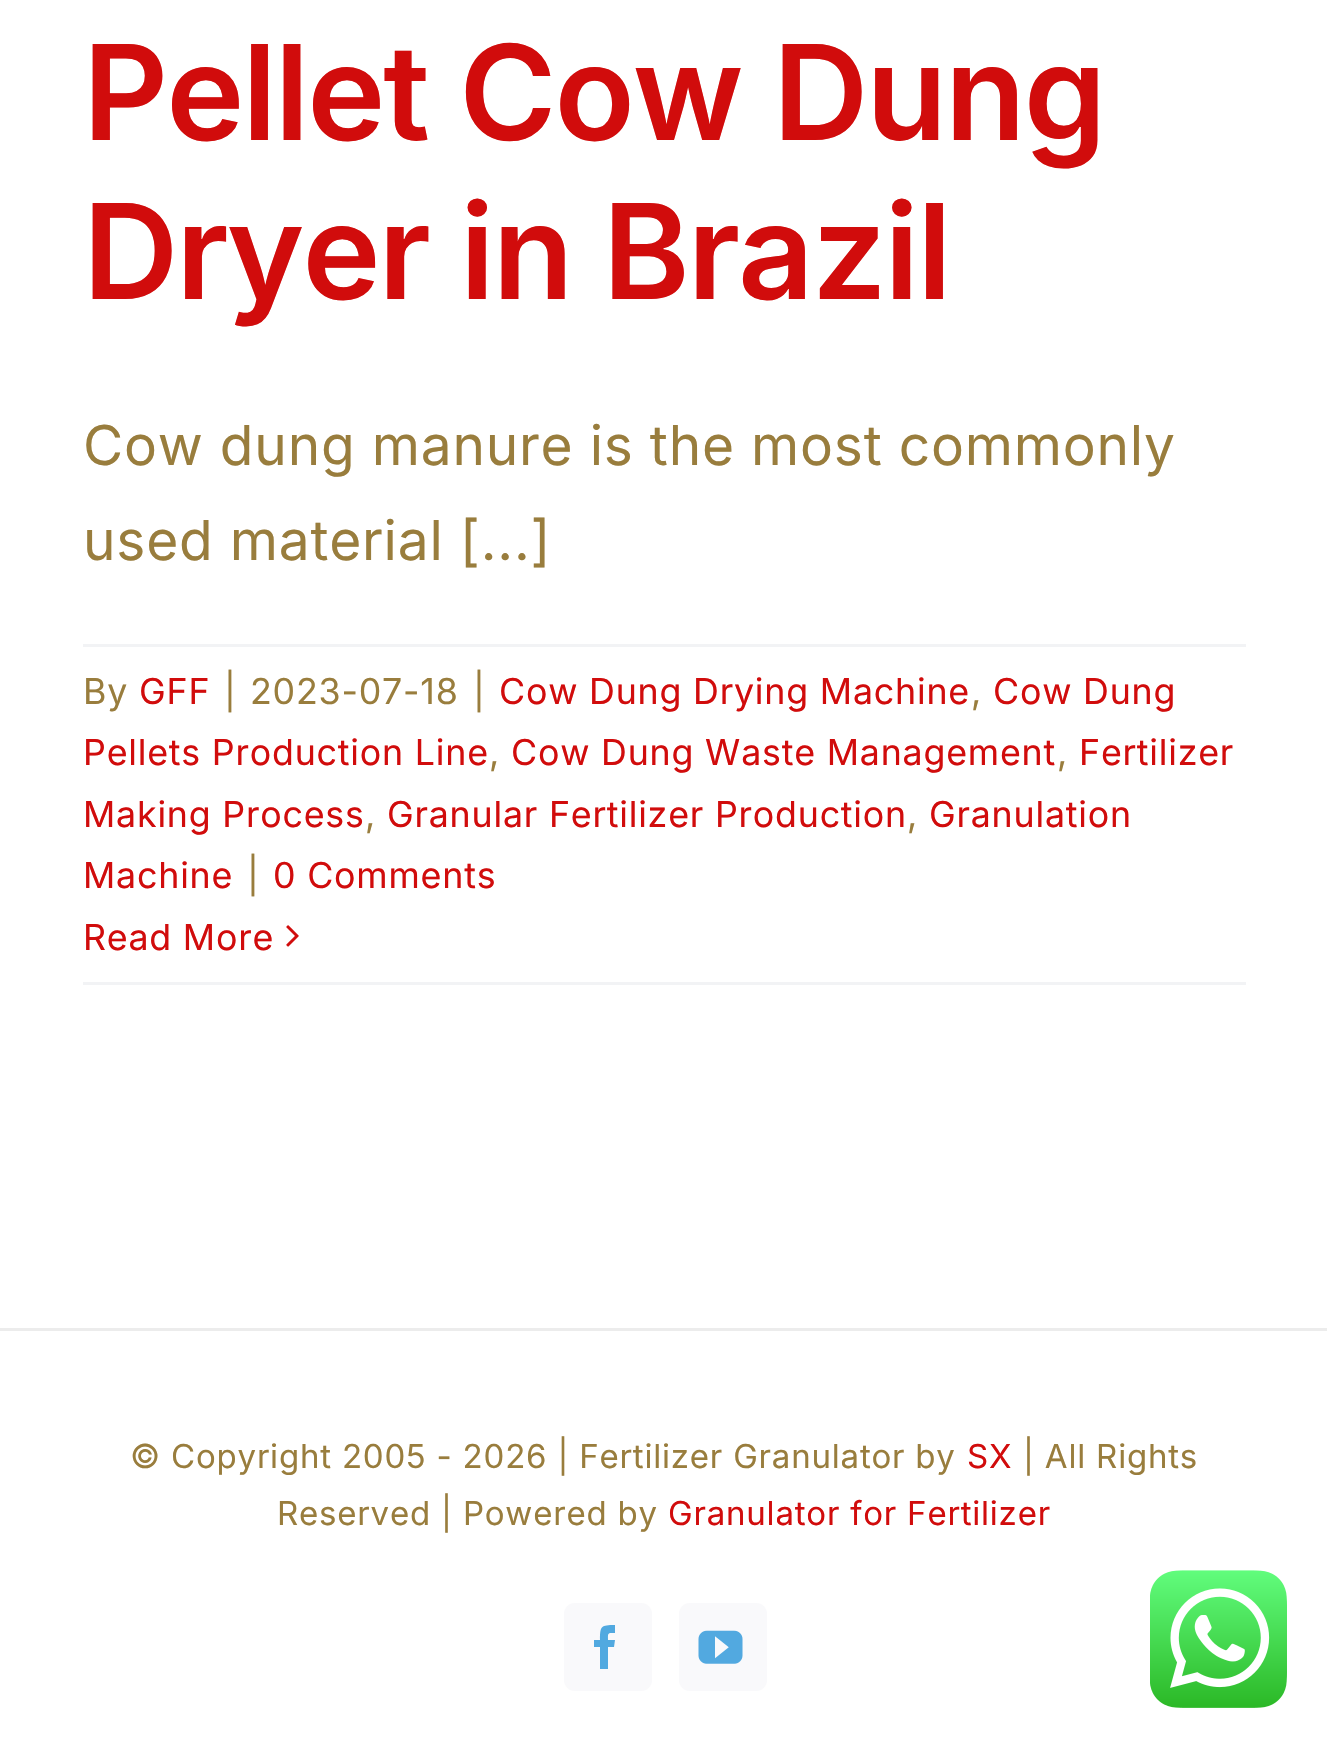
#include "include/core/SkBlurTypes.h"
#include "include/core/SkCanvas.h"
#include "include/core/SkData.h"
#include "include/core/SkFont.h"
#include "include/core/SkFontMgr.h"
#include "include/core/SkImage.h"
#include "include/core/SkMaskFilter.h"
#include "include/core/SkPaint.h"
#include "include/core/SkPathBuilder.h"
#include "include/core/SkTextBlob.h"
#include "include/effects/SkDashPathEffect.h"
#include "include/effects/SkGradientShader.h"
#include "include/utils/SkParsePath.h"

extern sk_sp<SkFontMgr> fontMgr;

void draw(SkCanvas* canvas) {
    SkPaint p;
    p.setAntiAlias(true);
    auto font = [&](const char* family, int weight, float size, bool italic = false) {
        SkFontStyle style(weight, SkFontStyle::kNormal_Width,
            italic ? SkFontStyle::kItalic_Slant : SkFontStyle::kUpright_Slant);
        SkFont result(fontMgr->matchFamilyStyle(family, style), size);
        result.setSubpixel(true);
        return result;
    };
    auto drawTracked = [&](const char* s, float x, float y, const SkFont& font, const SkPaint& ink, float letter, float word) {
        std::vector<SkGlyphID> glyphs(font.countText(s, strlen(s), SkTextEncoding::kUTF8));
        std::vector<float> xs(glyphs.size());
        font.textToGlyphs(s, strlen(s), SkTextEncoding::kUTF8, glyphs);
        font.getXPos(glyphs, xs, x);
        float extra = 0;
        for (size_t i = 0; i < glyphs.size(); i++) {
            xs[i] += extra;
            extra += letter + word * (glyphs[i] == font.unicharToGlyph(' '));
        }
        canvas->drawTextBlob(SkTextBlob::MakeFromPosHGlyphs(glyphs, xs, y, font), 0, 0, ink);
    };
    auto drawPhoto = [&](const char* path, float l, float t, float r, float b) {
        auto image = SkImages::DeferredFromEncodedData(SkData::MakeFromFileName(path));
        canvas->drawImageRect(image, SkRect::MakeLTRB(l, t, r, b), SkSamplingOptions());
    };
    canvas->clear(0xFFFFFFFF);
    auto font1 = font("Inter", 600, 132);
    p.setColor(0xFFD10C0C);
    drawTracked("Pellet Cow Dung", 83, 140, font1, p, -2, 0);
    drawTracked("Dryer in Brazil", 83, 299, font1, p, -2, 0);
    auto font2 = font("Inter", 400, 55);
    p.setColor(0xFF997D3D);
    drawTracked("Cow dung manure is the most commonly", 83, 465, font2, p, 0.8f, 0);
    drawTracked("used material [...]", 83, 560, font2, p, 0.8f, 0);
    p.setColor(0xFFF2F3F5);
    canvas->drawRect(SkRect::MakeLTRB(83, 644, 1246, 647), p);
    canvas->drawRect(SkRect::MakeLTRB(83, 982, 1246, 985), p);
    auto font3 = font("Inter", 400, 35.75f);
    p.setColor(0xFF997D3D);
    drawTracked("By", 83, 704, font3, p, 0.8f, 0);
    p.setColor(0xFFD10C0C);
    drawTracked("GFF", 139, 704, font3, p, 0.8f, 0);
    p.setColor(0xFF997D3D);
    {
        const struct { const char* s; float x, y; } items[] = {
            {"|", 224, 704},
            {"2023-07-18", 250, 704},
            {"|", 473, 704},
        };
        for (auto [s, x, y] : items) {
            drawTracked(s, x, y, font3, p, 0.8f, 0);
        }
    }
    p.setColor(0xFFD10C0C);
    drawTracked("Cow Dung Drying Machine", 499, 704, font3, p, 0.8f, 0);
    p.setColor(0xFF997D3D);
    drawTracked(",", 971, 704, font3, p, 0.8f, 0);
    p.setColor(0xFFD10C0C);
    drawTracked("Cow Dung", 993, 704, font3, p, 0.8f, 0);
    drawTracked("Pellets Production Line", 83, 765, font3, p, 0.8f, 0);
    p.setColor(0xFF997D3D);
    drawTracked(",", 489, 765, font3, p, 0.8f, 0);
    p.setColor(0xFFD10C0C);
    drawTracked("Cow Dung Waste Management", 511, 765, font3, p, 0.8f, 0);
    p.setColor(0xFF997D3D);
    drawTracked(",", 1057, 765, font3, p, 0.8f, 0);
    p.setColor(0xFFD10C0C);
    drawTracked("Fertilizer", 1079, 765, font3, p, 0.8f, 0);
    drawTracked("Making Process", 83, 827, font3, p, 0.8f, 0);
    p.setColor(0xFF997D3D);
    drawTracked(",", 365, 827, font3, p, 0.8f, 0);
    p.setColor(0xFFD10C0C);
    drawTracked("Granular Fertilizer Production", 387, 827, font3, p, 0.8f, 0);
    p.setColor(0xFF997D3D);
    drawTracked(",", 907, 827, font3, p, 0.8f, 0);
    p.setColor(0xFFD10C0C);
    drawTracked("Granulation", 929, 827, font3, p, 0.8f, 0);
    drawTracked("Machine", 83, 888, font3, p, 0.8f, 0);
    p.setColor(0xFF997D3D);
    drawTracked("|", 247, 888, font3, p, 0.8f, 0);
    p.setColor(0xFFD10C0C);
    drawTracked("0 Comments", 273, 888, font3, p, 0.8f, 0);
    drawTracked("Read More", 83, 950, font3, p, 0.8f, 0);
    drawPhoto("media/1.png", 286, 925, 299, 947);
    p.setColor(0xFFECECEC);
    canvas->drawRect(SkRect::MakeLTRB(0, 1328, 1327, 1331), p);
    auto font4 = font("Inter", 400, 33);
    p.setColor(0xFF997D3D);
    drawTracked("© Copyright 2005 - 2026 | Fertilizer Granulator by", 130, 1468, font4, p, 0.8f, 0);
    p.setColor(0xFFD10C0C);
    drawTracked("SX", 967, 1468, font4, p, 0.8f, 0);
    p.setColor(0xFF997D3D);
    drawTracked("| All Rights", 1023, 1468, font4, p, 0.8f, 0);
    drawTracked("Reserved | Powered by", 277, 1525, font4, p, 0.8f, 0);
    p.setColor(0xFFD10C0C);
    drawTracked("Granulator for Fertilizer", 668, 1525, font4, p, 0.8f, 0);
    p.setColor(0xFFF9F9FB);
    canvas->drawRoundRect(SkRect::MakeLTRB(564, 1603, 652, 1691), 11, 11, p);
    p.setColor(0xFF51A9E0);
    canvas->drawPath(SkPathBuilder().moveTo(608, 1669).lineTo(600, 1669).lineTo(600, 1647).lineTo(594, 1647).lineTo(594, 1640).lineTo(600, 1640).cubicTo(600, 1626, 601, 1625, 615, 1625).lineTo(615, 1633).cubicTo(607, 1633, 608, 1633, 608, 1640).lineTo(615, 1640).lineTo(614, 1647).lineTo(608, 1647).close().detach(), p);
    p.setColor(0xFFF9F9FB);
    canvas->drawRoundRect(SkRect::MakeLTRB(679, 1603, 767, 1691), 11, 11, p);
    drawPhoto("media/2.png", 698, 1630, 743, 1664);
    drawPhoto("media/3.png", 1150, 1570, 1287, 1708);
}
